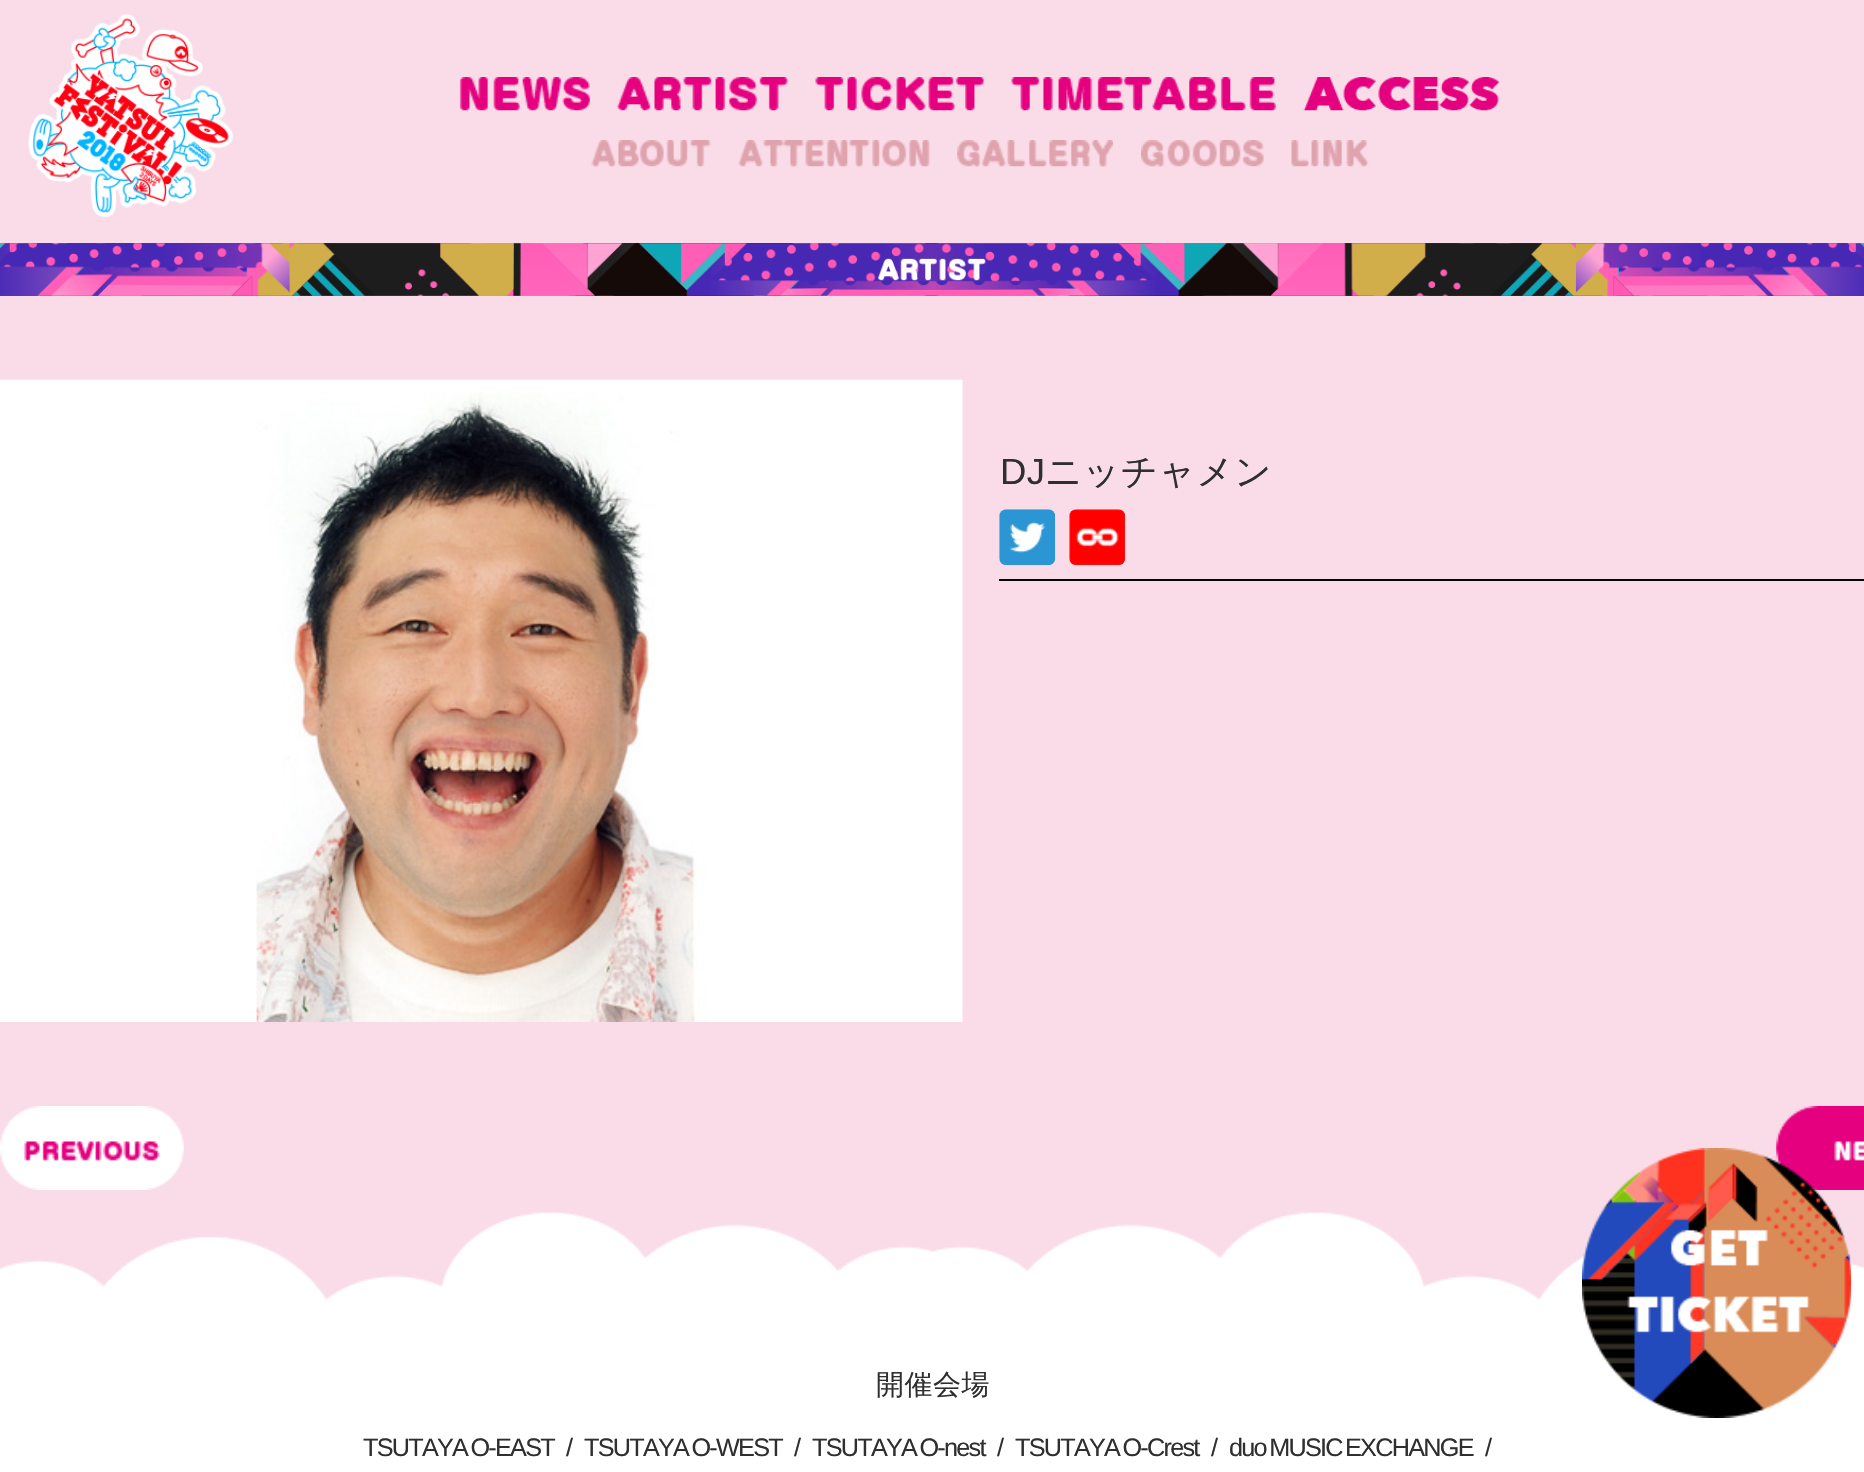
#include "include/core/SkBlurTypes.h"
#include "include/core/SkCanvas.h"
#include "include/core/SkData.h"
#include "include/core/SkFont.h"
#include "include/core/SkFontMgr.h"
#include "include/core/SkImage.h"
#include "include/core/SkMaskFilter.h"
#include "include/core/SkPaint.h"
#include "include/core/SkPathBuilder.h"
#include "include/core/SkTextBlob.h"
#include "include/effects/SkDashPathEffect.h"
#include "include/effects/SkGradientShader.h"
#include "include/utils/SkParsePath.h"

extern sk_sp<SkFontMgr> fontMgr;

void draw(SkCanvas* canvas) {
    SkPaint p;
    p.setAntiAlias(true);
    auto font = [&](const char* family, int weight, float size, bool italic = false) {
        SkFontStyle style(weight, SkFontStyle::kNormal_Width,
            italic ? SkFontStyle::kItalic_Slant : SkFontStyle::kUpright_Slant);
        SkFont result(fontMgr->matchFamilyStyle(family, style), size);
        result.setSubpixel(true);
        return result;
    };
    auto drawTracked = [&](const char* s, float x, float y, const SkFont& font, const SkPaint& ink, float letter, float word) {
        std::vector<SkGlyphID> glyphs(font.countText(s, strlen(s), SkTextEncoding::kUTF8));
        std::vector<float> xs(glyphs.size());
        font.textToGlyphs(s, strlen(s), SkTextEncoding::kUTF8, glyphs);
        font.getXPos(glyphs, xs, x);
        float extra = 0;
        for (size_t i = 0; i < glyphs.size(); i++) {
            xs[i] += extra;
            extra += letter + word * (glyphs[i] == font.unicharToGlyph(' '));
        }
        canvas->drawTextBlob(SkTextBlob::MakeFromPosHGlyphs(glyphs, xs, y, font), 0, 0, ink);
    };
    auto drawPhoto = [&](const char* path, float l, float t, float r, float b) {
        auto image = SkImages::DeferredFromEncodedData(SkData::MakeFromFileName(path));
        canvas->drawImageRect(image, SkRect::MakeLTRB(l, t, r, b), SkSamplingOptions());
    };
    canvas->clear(0xFFFFFFFF);
    p.setColor(0xFFFADCE9);
    canvas->drawRect(SkRect::MakeLTRB(0, 0, 1864, 1301), p);
    drawPhoto("media/1.png", 28, 14, 233, 217);
    drawPhoto("media/2.png", 460, 77, 590, 111);
    drawPhoto("media/3.png", 617, 77, 788, 111);
    drawPhoto("media/4.png", 815, 77, 984, 111);
    drawPhoto("media/5.png", 1011, 77, 1276, 111);
    drawPhoto("media/6.png", 1303, 77, 1500, 111);
    drawPhoto("media/7.png", 591, 140, 711, 167);
    drawPhoto("media/8.png", 738, 140, 930, 167);
    drawPhoto("media/9.png", 957, 140, 1113, 167);
    drawPhoto("media/10.png", 1141, 140, 1264, 167);
    drawPhoto("media/11.png", 1291, 140, 1369, 167);
    drawPhoto("media/12.png", 0, 243, 1864, 296);
    drawPhoto("media/13.png", 0, 243, 1864, 296);
    drawPhoto("media/14.png", 0, 243, 1864, 296);
    drawPhoto("media/15.png", 0, 379, 963, 1022);
    auto font1 = font("Liberation Sans", 400, 36.5f);
    p.setColor(0xFF2F2F2F);
    drawTracked("DJ", 1000, 484, font1, p, 0.5f, 0);
    auto font2 = font("WenQuanYi Zen Hei", 500, 36.5f);
    drawTracked("ニッチャメン", 1045, 484, font2, p, 0.5f, 0);
    p.setColor(0xFF000000);
    canvas->drawRect(SkRect::MakeLTRB(999, 579, 1864, 581), p);
    drawPhoto("media/16.png", 999, 509, 1056, 566);
    drawPhoto("media/17.png", 1069, 509, 1126, 566);
    drawPhoto("media/18.png", 0, 1106, 184, 1190);
    drawPhoto("media/19.png", 1776, 1106, 1864, 1190);
    drawPhoto("media/20.png", 0, 1212, 1864, 1330);
    auto font3 = font("WenQuanYi Zen Hei", 500, 28);
    p.setColor(0xFF2F2F2F);
    drawTracked("開催会場", 876, 1394, font3, p, 0.5f, 0);
    auto font4 = font("Liberation Sans", 400, 25.25f);
    drawTracked("TSUTAYA O-EAST", 363, 1456, font4, p, -1.75f, -2);
    drawTracked("/", 566, 1456, font4, p, -1.75f, 0);
    drawTracked("TSUTAYA O-WEST", 584, 1456, font4, p, -1.75f, -2);
    drawTracked("/", 794, 1456, font4, p, -1.75f, 0);
    drawTracked("TSUTAYA O-nest", 812, 1456, font4, p, -1.75f, -2);
    drawTracked("/", 997, 1456, font4, p, -1.75f, 0);
    drawTracked("TSUTAYA O-Crest", 1015, 1456, font4, p, -1.75f, -2);
    drawTracked("/", 1211, 1456, font4, p, -1.75f, 0);
    drawTracked("duo MUSIC EXCHANGE", 1229, 1456, font4, p, -1.75f, -2);
    drawTracked("/", 1485, 1456, font4, p, -1.75f, 0);
    drawPhoto("media/21.png", 1582, 1148, 1851, 1418);
}
